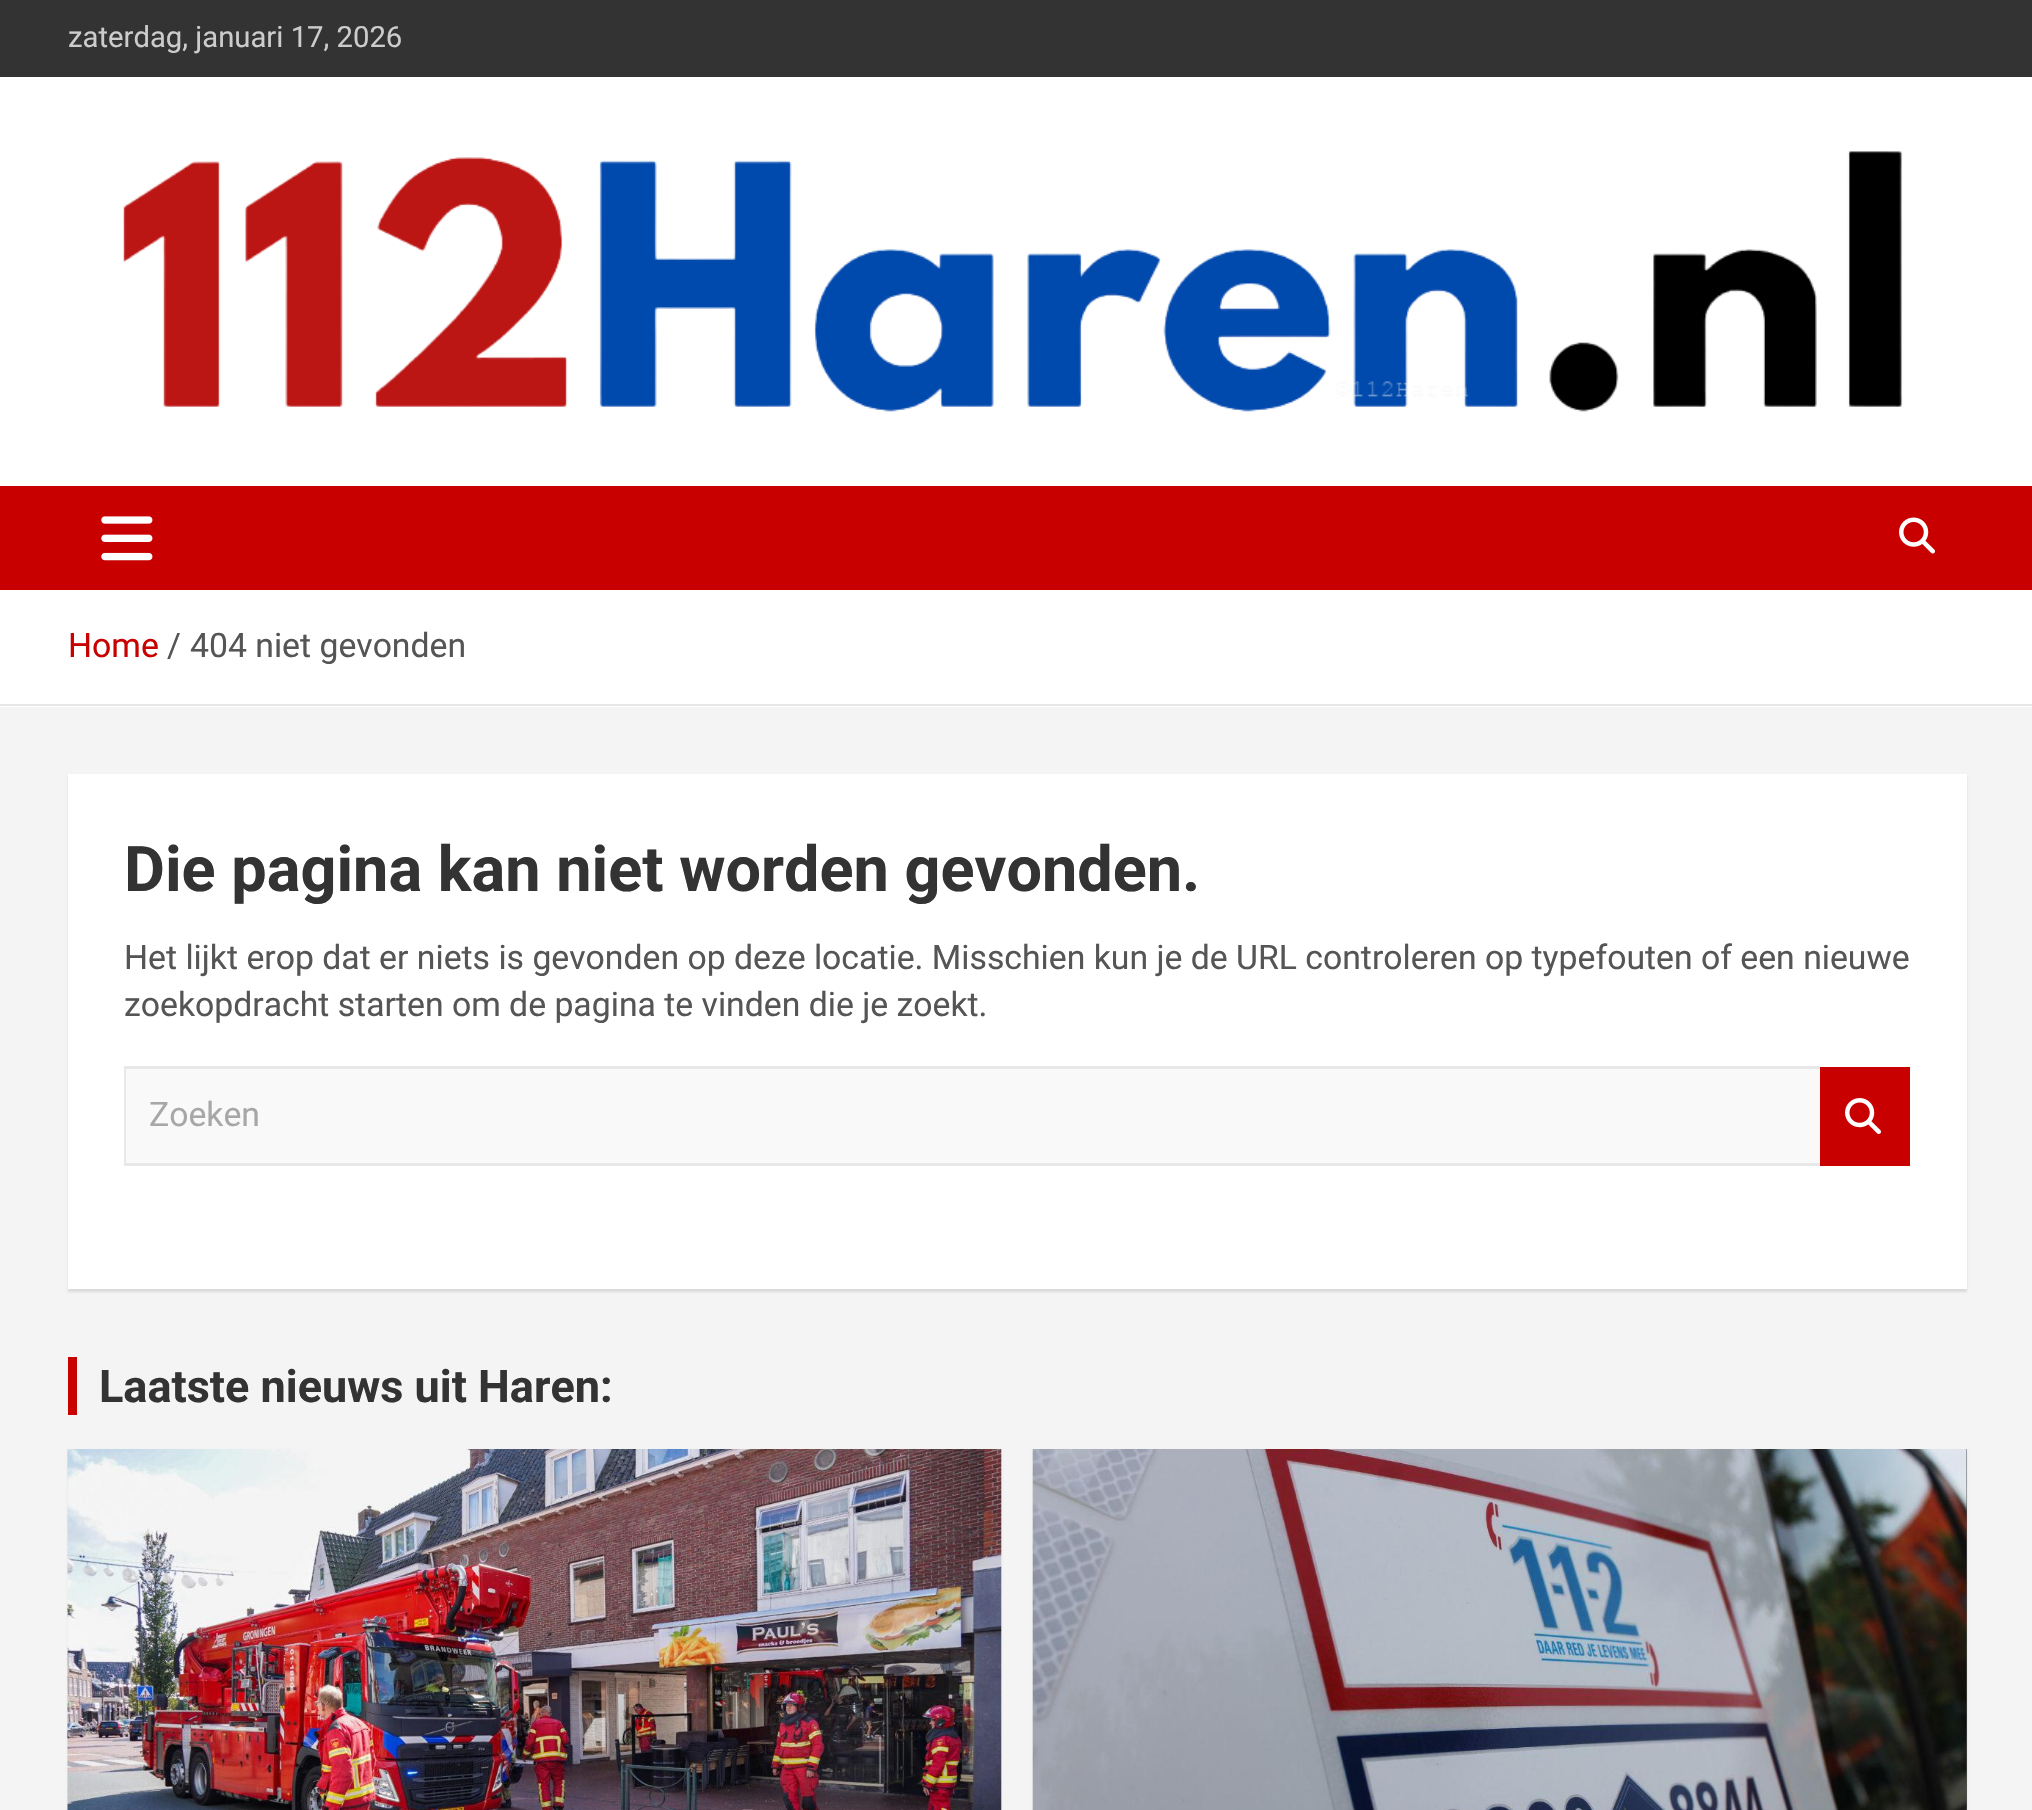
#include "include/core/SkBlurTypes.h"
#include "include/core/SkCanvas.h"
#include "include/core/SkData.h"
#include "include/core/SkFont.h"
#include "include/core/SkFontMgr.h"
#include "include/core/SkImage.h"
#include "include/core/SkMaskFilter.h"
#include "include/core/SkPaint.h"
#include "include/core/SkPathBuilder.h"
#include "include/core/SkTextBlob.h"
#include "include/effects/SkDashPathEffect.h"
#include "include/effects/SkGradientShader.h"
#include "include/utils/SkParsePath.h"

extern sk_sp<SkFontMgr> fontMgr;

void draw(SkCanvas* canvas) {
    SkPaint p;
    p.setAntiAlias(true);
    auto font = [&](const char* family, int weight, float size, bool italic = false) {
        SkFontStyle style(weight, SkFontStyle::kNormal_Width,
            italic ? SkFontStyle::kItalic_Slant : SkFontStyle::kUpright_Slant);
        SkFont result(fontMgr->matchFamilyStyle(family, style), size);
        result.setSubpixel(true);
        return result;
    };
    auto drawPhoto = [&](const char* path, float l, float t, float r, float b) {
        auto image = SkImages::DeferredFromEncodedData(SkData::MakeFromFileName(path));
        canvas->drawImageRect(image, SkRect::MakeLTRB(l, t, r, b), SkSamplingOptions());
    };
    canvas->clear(0xFFF4F4F4);
    p.setColor(0xFF333333);
    canvas->drawRect(SkRect::MakeLTRB(0, 0, 2032, 77), p);
    auto font1 = font("Roboto", 400, 29.25f);
    p.setColor(0xFFCCCCCC);
    canvas->drawString("zaterdag, januari 17, 2026", 68, 47, font1, p);
    p.setColor(0xFFFFFFFF);
    canvas->drawRect(SkRect::MakeLTRB(0, 77, 2032, 486), p);
    drawPhoto("media/1.png", 123, 151, 1903, 412);
    p.setColor(0xFFC80000);
    canvas->drawRect(SkRect::MakeLTRB(0, 486, 2032, 590), p);
    drawPhoto("media/2.png", 101, 516, 153, 561);
    drawPhoto("media/3.png", 1899, 517, 1935, 554);
    p.setColor(0xFFFFFFFF);
    canvas->drawRect(SkRect::MakeLTRB(0, 590, 2032, 707), p);
    p.setColor(0xFFE6E6E6);
    canvas->drawRect(SkRect::MakeLTRB(0, 704, 2032, 706), p);
    auto font2 = font("Roboto", 400, 33.75f);
    p.setColor(0xFFC80000);
    canvas->drawString("Home", 68, 657, font2, p);
    p.setColor(0xFF555555);
    canvas->drawString("/", 167, 657, font2, p);
    canvas->drawString("404 niet gevonden", 190, 657, font2, p);
    p.setColor(0x1A000000);
    p.setMaskFilter(SkMaskFilter::MakeBlur(kNormal_SkBlurStyle, 1));
    canvas->drawRect(SkRect::MakeLTRB(68, 776, 1967, 1292), p);
    p.setMaskFilter(nullptr);
    p.setColor(0xFFFFFFFF);
    canvas->drawRect(SkRect::MakeLTRB(68, 774, 1967, 1289), p);
    auto font3 = font("Roboto", 700, 63);
    p.setColor(0xFF333333);
    canvas->drawString("Die pagina kan niet worden gevonden.", 124, 891, font3, p);
    p.setColor(0xFF555555);
    canvas->drawString("Het lijkt erop dat er niets is gevonden op deze locatie. Misschien kun je de URL controleren op typefouten of een nieuwe", 124, 969, font2, p);
    canvas->drawString("zoekopdracht starten om de pagina te vinden die je zoekt.", 124, 1016, font2, p);
    p.setColor(0xFFF9F9F9);
    canvas->drawRect(SkRect::MakeLTRB(126, 1069, 1820, 1163), p);
    p.setColor(0xFFE8E8E8);
    canvas->drawPath(SkPathBuilder().moveTo(124, 1066).lineTo(1820, 1066).lineTo(1820, 1069).lineTo(126, 1069).close().detach(), p);
    canvas->drawPath(SkPathBuilder().moveTo(1820, 1166).lineTo(124, 1166).lineTo(126, 1163).lineTo(1820, 1163).close().detach(), p);
    p.setColor(0x17000000);
    canvas->drawPath(SkPathBuilder().moveTo(124, 1166).lineTo(124, 1066).lineTo(126, 1069).lineTo(126, 1163).close().detach(), p);
    p.setColor(0xFFA7A7A7);
    canvas->drawString("Zoeken", 149, 1126, font2, p);
    p.setColor(0xFFC80000);
    canvas->drawRect(SkRect::MakeLTRB(1820, 1067, 1910, 1166), p);
    drawPhoto("media/4.png", 1845, 1098, 1881, 1134);
    canvas->drawRect(SkRect::MakeLTRB(68, 1357, 77, 1415), p);
    auto font4 = font("Roboto", 700, 45);
    p.setColor(0xFF333333);
    canvas->drawString("Laatste nieuws uit Haren:", 99, 1402, font4, p);
    p.setColor(0x1A000000);
    p.setMaskFilter(SkMaskFilter::MakeBlur(kNormal_SkBlurStyle, 1));
    canvas->drawRect(SkRect::MakeLTRB(68, 1451, 1001, 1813), p);
    p.setMaskFilter(nullptr);
    drawPhoto("media/5.png", 67, 1449, 1002, 1810);
    p.setMaskFilter(SkMaskFilter::MakeBlur(kNormal_SkBlurStyle, 1));
    canvas->drawRect(SkRect::MakeLTRB(1033, 1451, 1967, 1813), p);
    p.setMaskFilter(nullptr);
    p.setColor(0xFF555555);
    canvas->drawRect(SkRect::MakeLTRB(1966, 1449, 1967, 1810), p);
    drawPhoto("media/6.png", 1032, 1449, 1967, 1810);
}
